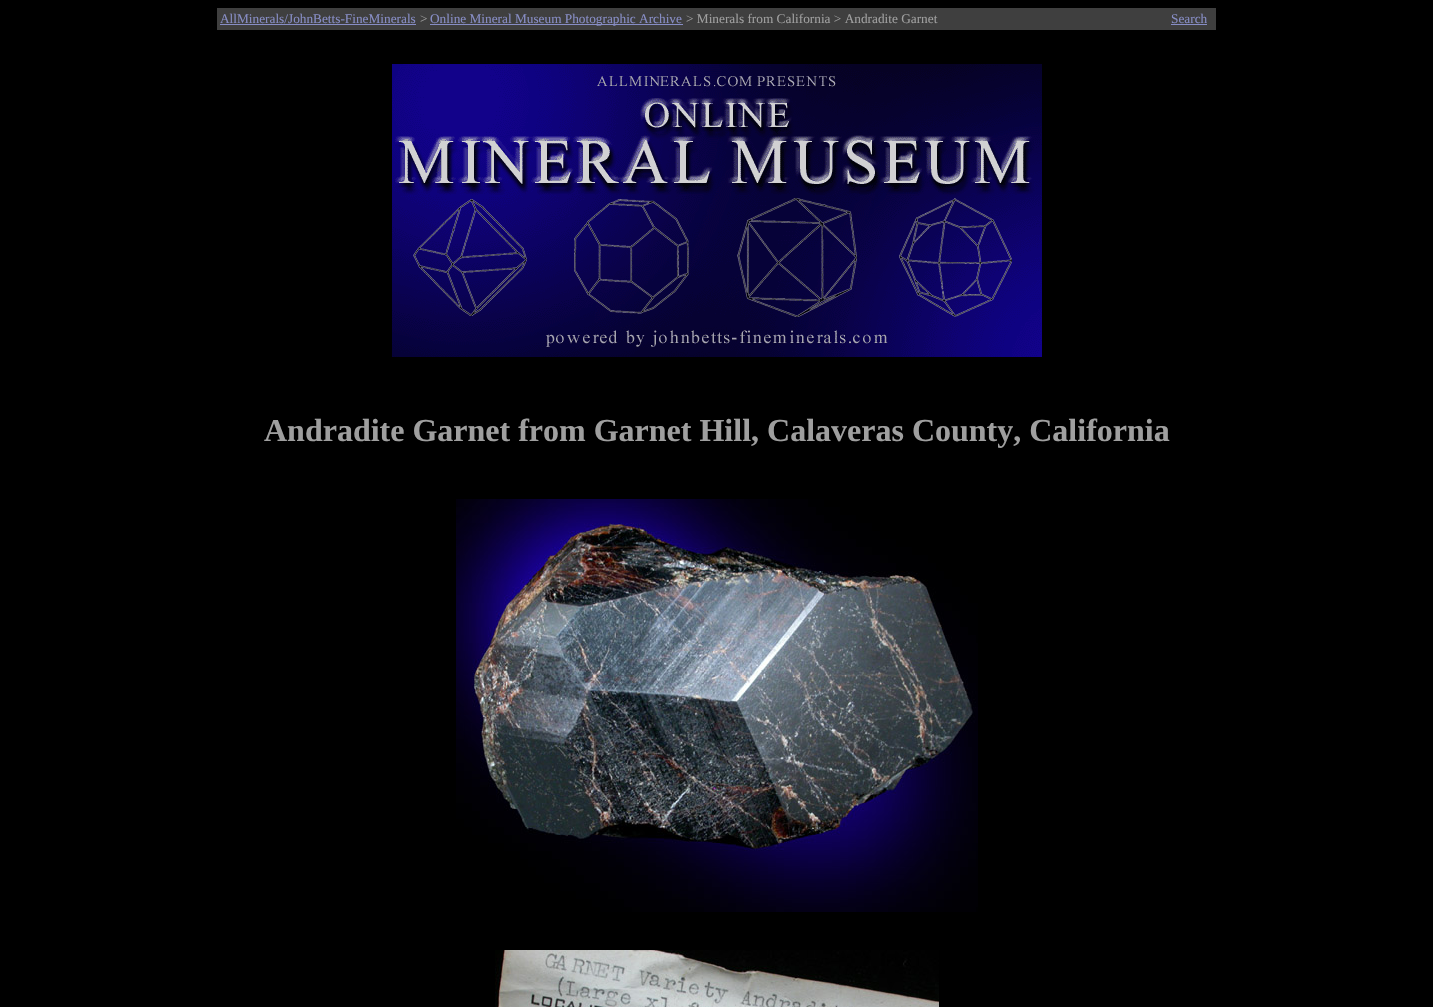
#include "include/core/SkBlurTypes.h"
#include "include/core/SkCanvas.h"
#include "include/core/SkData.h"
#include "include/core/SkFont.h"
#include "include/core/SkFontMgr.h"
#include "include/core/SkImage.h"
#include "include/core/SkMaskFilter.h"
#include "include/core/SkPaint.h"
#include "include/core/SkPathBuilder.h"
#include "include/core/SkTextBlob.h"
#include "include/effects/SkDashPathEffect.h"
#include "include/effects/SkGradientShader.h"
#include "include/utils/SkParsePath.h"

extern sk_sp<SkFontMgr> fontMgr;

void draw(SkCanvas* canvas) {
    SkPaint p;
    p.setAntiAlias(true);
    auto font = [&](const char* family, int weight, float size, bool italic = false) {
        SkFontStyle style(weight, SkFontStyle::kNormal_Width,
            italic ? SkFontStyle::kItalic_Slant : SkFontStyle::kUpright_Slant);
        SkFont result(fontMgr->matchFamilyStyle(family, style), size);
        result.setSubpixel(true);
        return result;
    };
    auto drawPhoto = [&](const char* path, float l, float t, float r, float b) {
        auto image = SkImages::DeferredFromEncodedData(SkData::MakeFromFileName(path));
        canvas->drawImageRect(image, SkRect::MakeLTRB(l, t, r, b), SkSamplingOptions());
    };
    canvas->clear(0xFF000000);
    p.setColor(0xFF3F3F3F);
    canvas->drawRect(SkRect::MakeLTRB(217, 8, 1216, 30), p);
    auto font1 = font("Liberation Serif", 400, 13.3f);
    p.setColor(0xFF878DC5);
    canvas->drawString("AllMinerals/JohnBetts-FineMinerals", 220, 23, font1, p);
    canvas->drawRect(SkRect::MakeLTRB(220, 24, 416, 25), p);
    p.setColor(0xFF9F9F9F);
    canvas->drawString(">", 420, 23, font1, p);
    p.setColor(0xFF878DC5);
    canvas->drawRect(SkRect::MakeLTRB(430, 24, 683, 25), p);
    canvas->drawString("Online Mineral Museum Photographic Archive", 430, 23, font1, p);
    p.setColor(0xFF9F9F9F);
    canvas->drawString("> Minerals from California > Andradite Garnet", 686, 23, font1, p);
    p.setColor(0xFF878DC5);
    canvas->drawString("Search", 1171, 23, font1, p);
    canvas->drawRect(SkRect::MakeLTRB(1171, 24, 1207, 25), p);
    drawPhoto("media/1.png", 392, 64, 1042, 357);
    auto font2 = font("Liberation Serif", 700, 32);
    p.setColor(0xFF9F9F9F);
    canvas->drawString("Andradite Garnet from Garnet Hill, Calaveras County, California", 264, 441, font2, p);
    drawPhoto("media/2.png", 456, 499, 978, 912);
    drawPhoto("media/3.png", 495, 950, 939, 1007);
}
